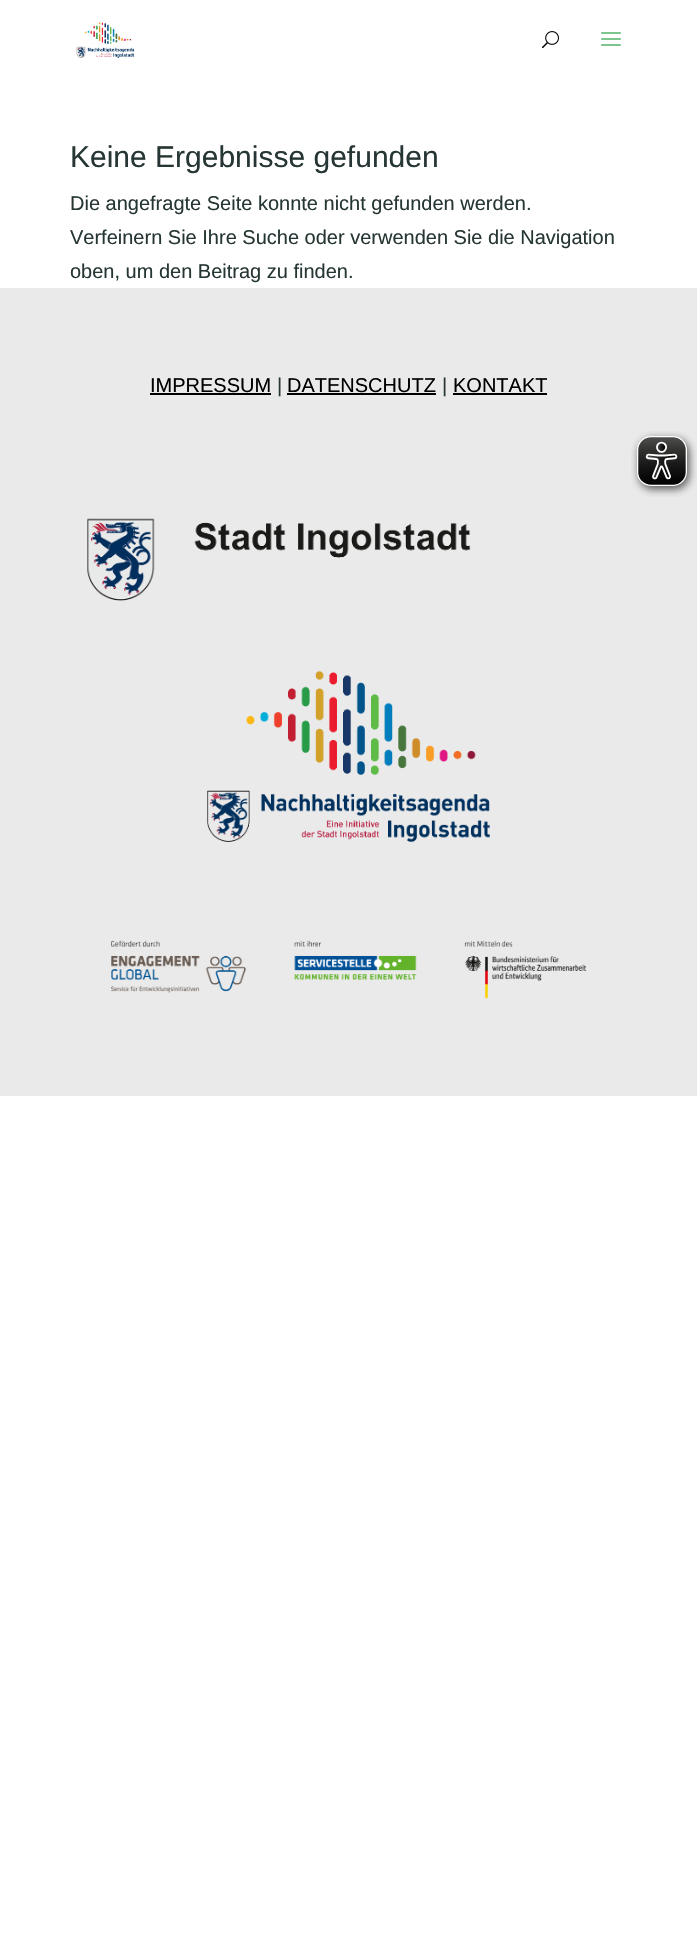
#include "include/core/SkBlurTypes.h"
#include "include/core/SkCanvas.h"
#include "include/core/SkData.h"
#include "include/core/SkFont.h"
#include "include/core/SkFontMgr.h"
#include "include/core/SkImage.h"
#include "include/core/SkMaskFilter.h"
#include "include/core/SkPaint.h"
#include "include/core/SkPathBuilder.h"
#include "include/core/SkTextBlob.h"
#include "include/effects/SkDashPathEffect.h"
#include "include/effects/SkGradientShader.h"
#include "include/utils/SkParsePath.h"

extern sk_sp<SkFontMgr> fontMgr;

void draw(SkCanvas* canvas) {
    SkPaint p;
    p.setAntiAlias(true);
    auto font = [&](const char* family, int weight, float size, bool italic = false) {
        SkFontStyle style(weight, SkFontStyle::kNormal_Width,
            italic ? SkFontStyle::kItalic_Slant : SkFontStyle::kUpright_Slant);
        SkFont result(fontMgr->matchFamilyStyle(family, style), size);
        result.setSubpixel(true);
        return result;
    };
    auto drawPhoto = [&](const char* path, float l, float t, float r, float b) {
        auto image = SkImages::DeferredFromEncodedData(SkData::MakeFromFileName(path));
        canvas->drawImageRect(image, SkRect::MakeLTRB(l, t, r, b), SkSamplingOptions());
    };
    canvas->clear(0xFFFFFFFF);
    drawPhoto("media/1.png", 76, 22, 135, 58);
    drawPhoto("media/2.png", 542, 31, 559, 49);
    drawPhoto("media/3.png", 601, 32, 621, 46);
    auto font1 = font("Liberation Sans", 400, 30);
    p.setColor(0xFF263634);
    canvas->drawString("Keine Ergebnisse gefunden", 70, 167, font1, p);
    auto font2 = font("Liberation Sans", 400, 20);
    {
        const struct { const char* s; float x, y; } items[] = {
            {"Die angefragte Seite konnte nicht gefunden werden.", 70, 210},
            {"Verfeinern Sie Ihre Suche oder verwenden Sie die Navigation", 70, 244},
            {"oben, um den Beitrag zu finden.", 70, 278},
        };
        for (auto [s, x, y] : items) {
            canvas->drawString(s, x, y, font2, p);
        }
    }
    p.setColor(0xFFEAEAEA);
    canvas->drawRect(SkRect::MakeLTRB(0, 288, 697, 1096), p);
    p.setColor(0xFF000000);
    canvas->drawString("IMPRESSUM", 150, 392, font2, p);
    canvas->drawRect(SkRect::MakeLTRB(150, 393, 271, 395), p);
    p.setColor(0xFF263634);
    canvas->drawString("|", 277, 392, font2, p);
    p.setColor(0xFF000000);
    canvas->drawString("DATENSCHUTZ", 287, 392, font2, p);
    canvas->drawRect(SkRect::MakeLTRB(287, 393, 436, 395), p);
    p.setColor(0xFF263634);
    canvas->drawString("|", 442, 392, font2, p);
    p.setColor(0xFF000000);
    canvas->drawString("KONTAKT", 453, 392, font2, p);
    canvas->drawRect(SkRect::MakeLTRB(453, 393, 547, 395), p);
    drawPhoto("media/4.png", 87, 518, 471, 601);
    drawPhoto("media/5.png", 207, 671, 490, 842);
    drawPhoto("media/6.png", 111, 940, 587, 999);
    drawPhoto("media/7.png", 631, 431, 697, 497);
}
